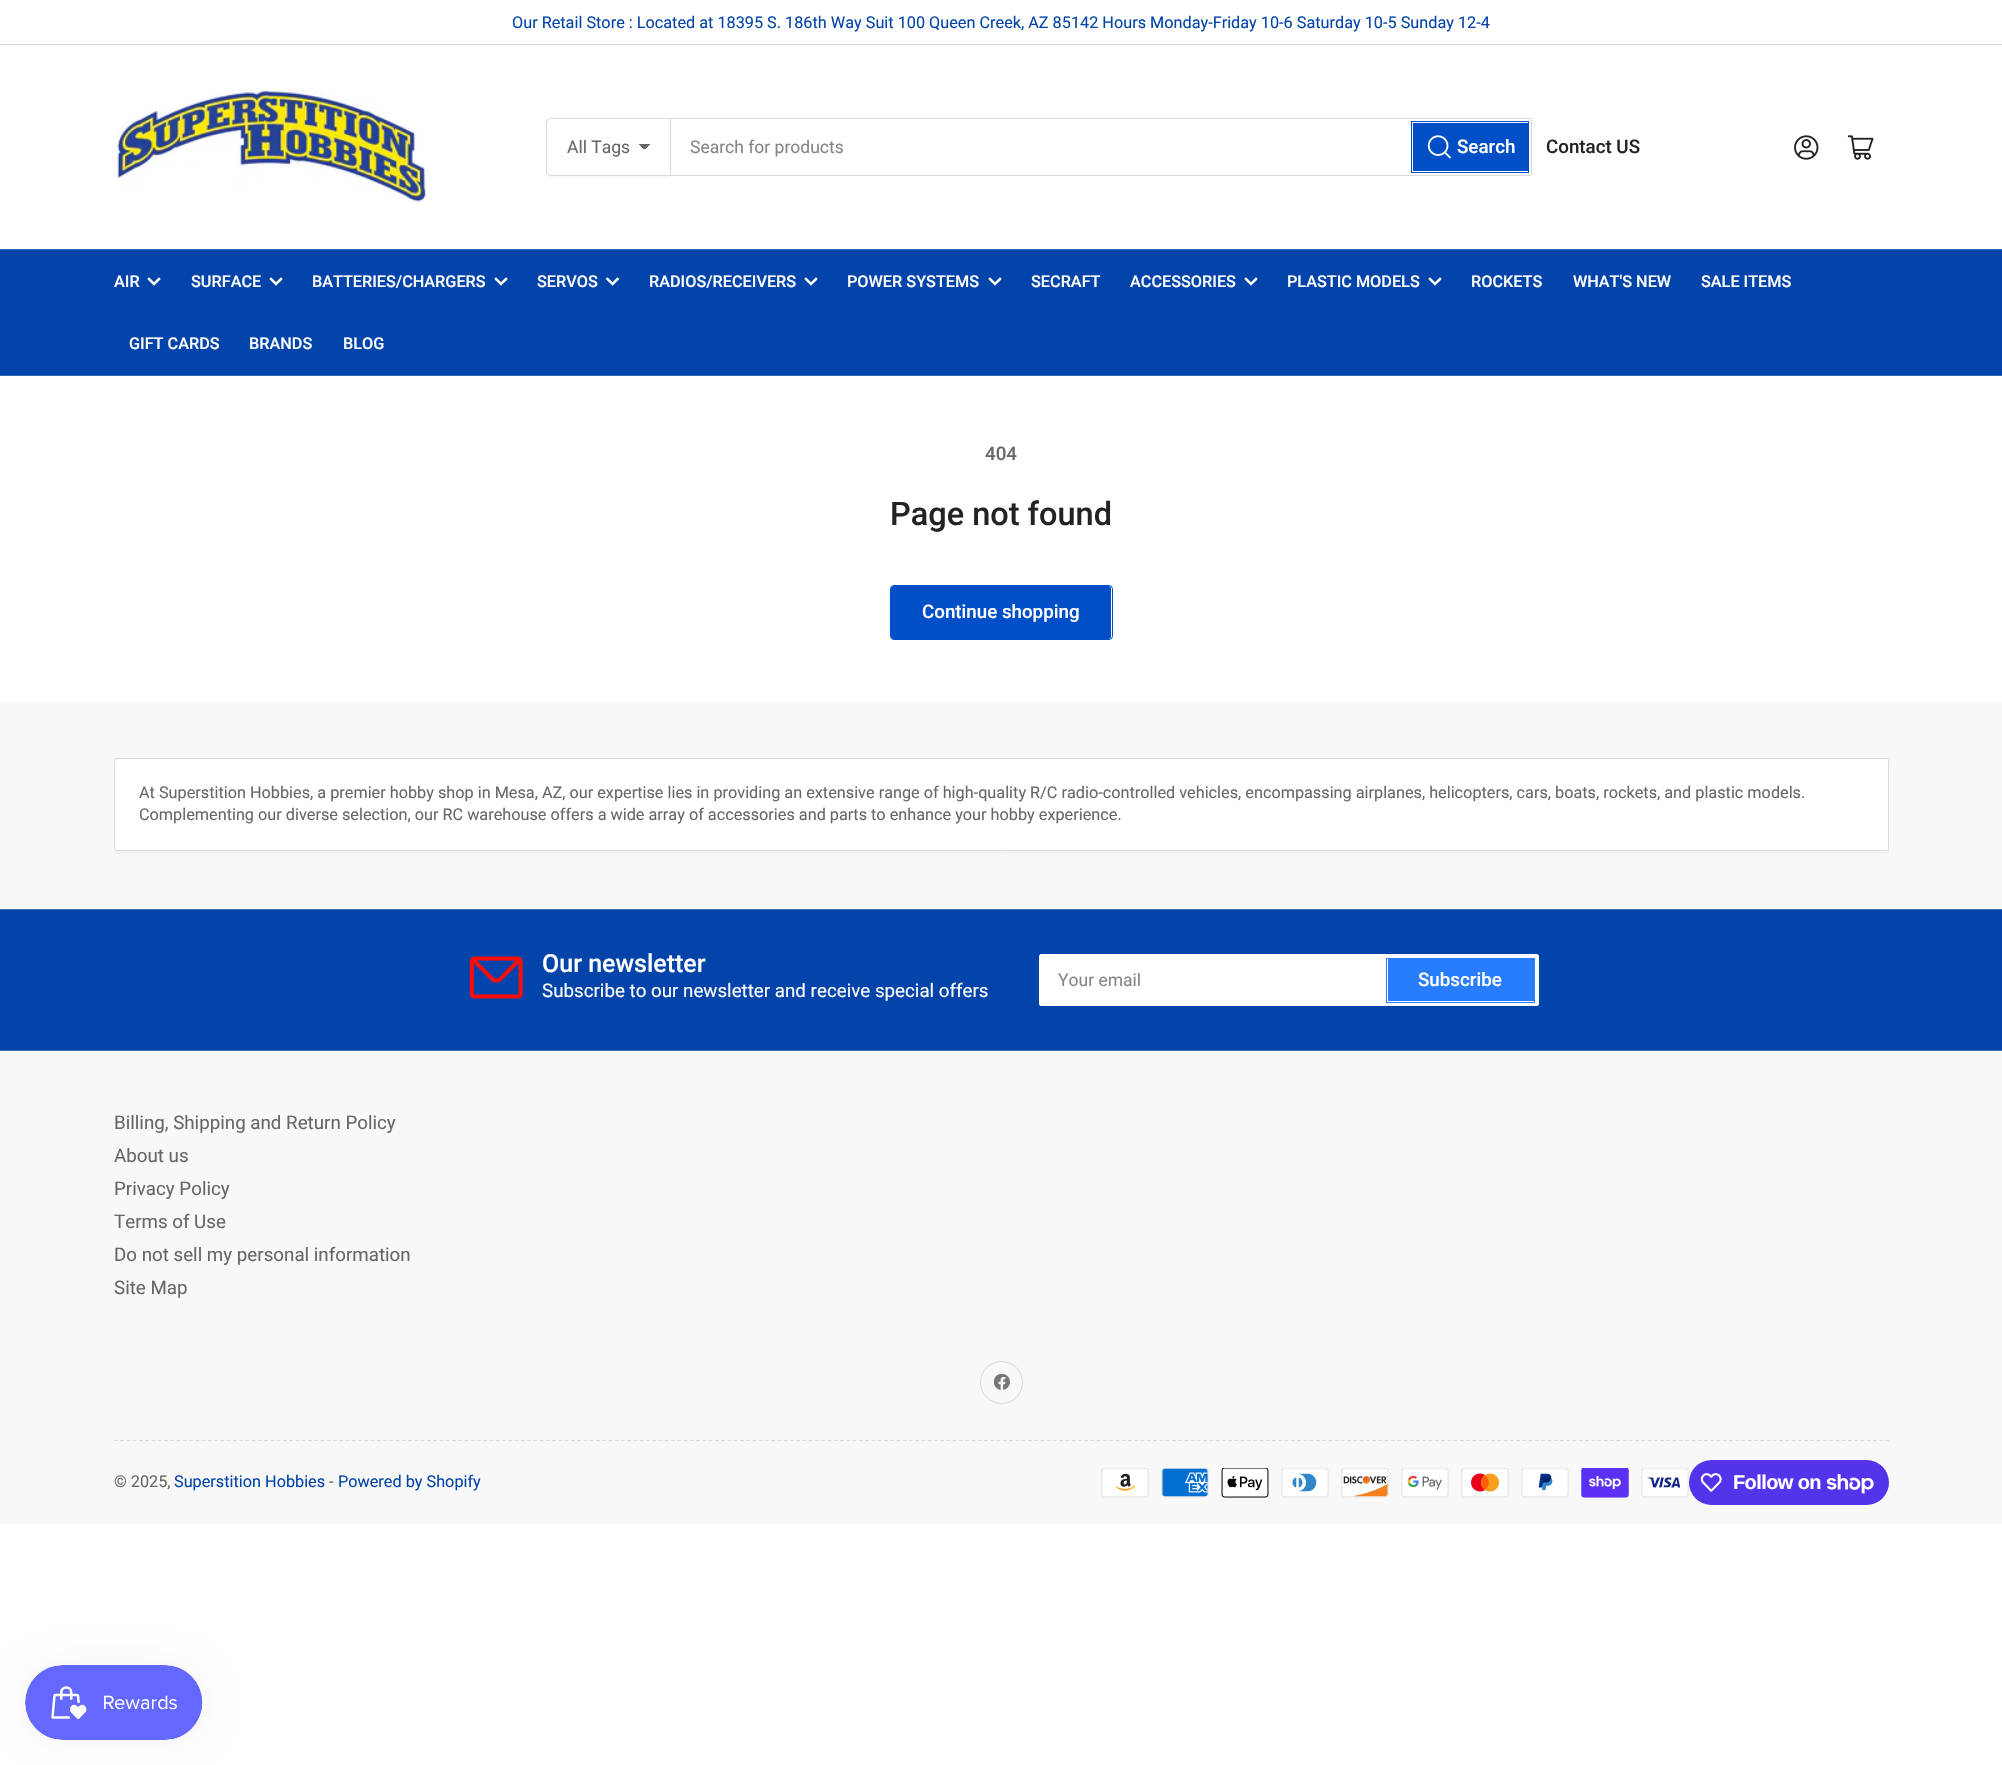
#include "include/core/SkBlurTypes.h"
#include "include/core/SkCanvas.h"
#include "include/core/SkData.h"
#include "include/core/SkFont.h"
#include "include/core/SkFontMgr.h"
#include "include/core/SkImage.h"
#include "include/core/SkMaskFilter.h"
#include "include/core/SkPaint.h"
#include "include/core/SkPathBuilder.h"
#include "include/core/SkTextBlob.h"
#include "include/effects/SkDashPathEffect.h"
#include "include/effects/SkGradientShader.h"
#include "include/utils/SkParsePath.h"

extern sk_sp<SkFontMgr> fontMgr;

void draw(SkCanvas* canvas) {
    SkPaint p;
    p.setAntiAlias(true);
    auto font = [&](const char* family, int weight, float size, bool italic = false) {
        SkFontStyle style(weight, SkFontStyle::kNormal_Width,
            italic ? SkFontStyle::kItalic_Slant : SkFontStyle::kUpright_Slant);
        SkFont result(fontMgr->matchFamilyStyle(family, style), size);
        result.setSubpixel(true);
        return result;
    };
    auto drawTracked = [&](const char* s, float x, float y, const SkFont& font, const SkPaint& ink, float letter, float word) {
        std::vector<SkGlyphID> glyphs(font.countText(s, strlen(s), SkTextEncoding::kUTF8));
        std::vector<float> xs(glyphs.size());
        font.textToGlyphs(s, strlen(s), SkTextEncoding::kUTF8, glyphs);
        font.getXPos(glyphs, xs, x);
        float extra = 0;
        for (size_t i = 0; i < glyphs.size(); i++) {
            xs[i] += extra;
            extra += letter + word * (glyphs[i] == font.unicharToGlyph(' '));
        }
        canvas->drawTextBlob(SkTextBlob::MakeFromPosHGlyphs(glyphs, xs, y, font), 0, 0, ink);
    };
    auto drawPhoto = [&](const char* path, float l, float t, float r, float b) {
        auto image = SkImages::DeferredFromEncodedData(SkData::MakeFromFileName(path));
        canvas->drawImageRect(image, SkRect::MakeLTRB(l, t, r, b), SkSamplingOptions());
    };
    canvas->clear(0xFFFFFFFF);
    p.setColor(0xFFDADADA);
    canvas->drawRect(SkRect::MakeLTRB(0, 44, 2002, 45), p);
    auto font1 = font("Roboto", 400, 16.25f);
    p.setColor(0xFF0244A9);
    canvas->drawString("Our Retail Store : Located at 18395 S. 186th Way Suit 100 Queen Creek, AZ 85142 Hours Monday-Friday 10-6 Saturday 10-5 Sunday 12-4", 512, 28, font1, p);
    drawPhoto("media/1.png", 114, 89, 427, 204);
    p.setStyle(SkPaint::kStroke_Style);
    p.setStrokeWidth(1);
    p.setColor(0xFFDADADA);
    canvas->drawRoundRect(SkRect::MakeLTRB(546.5f, 118.5f, 670.5f, 175.5f), 4.5f, 4.5f, p);
    p.setStyle(SkPaint::kFill_Style);
    p.setColor(0x33DADADA);
    canvas->drawPath(SkPathBuilder().moveTo(546, 123).lineTo(546, 166).cubicTo(546, 170, 544, 179, 551, 179).lineTo(671, 179).lineTo(671, 176).lineTo(551, 176).cubicTo(548, 176, 546, 174, 546, 171).close().detach(), p);
    p.setColor(0xFFFFFFFF);
    canvas->drawPath(SkPathBuilder().moveTo(551, 118).lineTo(671, 118).lineTo(671, 176).lineTo(551, 176).cubicTo(548, 176, 546, 174, 546, 171).lineTo(546, 123).cubicTo(546, 120, 548, 118, 551, 118).close().detach(), p);
    {
        const SkColor colors[] = {0xFF676767, 0xFFFFFFFF};
        const float stops[] = {0.5f, 0.5f};
        const SkPoint ends[] = {{645, 144}, {651, 150}};
        p.setShader(SkGradientShader::MakeLinear(ends, colors, stops, 2, SkTileMode::kClamp));
        p.setAlpha(255);
    }
    canvas->drawRect(SkRect::MakeLTRB(645, 144, 651, 149), p);
    {
        const SkColor colors[] = {0xFFFFFFFF, 0xFF676767};
        const float stops[] = {0.5f, 0.5f};
        const SkPoint ends[] = {{639, 150}, {645, 144}};
        p.setShader(SkGradientShader::MakeLinear(ends, colors, stops, 2, SkTileMode::kClamp));
        p.setAlpha(255);
    }
    canvas->drawRect(SkRect::MakeLTRB(639, 144, 645, 149), p);
    p.setStyle(SkPaint::kStroke_Style);
    p.setShader(nullptr);
    p.setColor(0xFFDADADA);
    canvas->drawPath(SkPathBuilder().moveTo(551, 118.5f).lineTo(670.5f, 118.5f).lineTo(670.5f, 175.5f).lineTo(551, 175.5f).cubicTo(548.5f, 175.5f, 546.5f, 173.5f, 546.5f, 171).lineTo(546.5f, 123).cubicTo(546.5f, 120.5f, 548.5f, 118.5f, 551, 118.5f).close().detach(), p);
    auto font2 = font("Roboto", 400, 17.5f);
    p.setStyle(SkPaint::kFill_Style);
    p.setColor(0xFF676767);
    canvas->drawString("All Tags", 567, 153, font2, p);
    {
        const struct { float l, t, r, b; SkColor color; } items[] = {
            {671, 118, 1531, 119, 0xFFDADADA},
            {1531, 119, 1532, 175, 0xFFDADADA},
            {671, 175, 1531, 176, 0xFFDADADA},
        };
        for (auto [l, t, r, b, color] : items) {
            p.setColor(color);
            canvas->drawRect(SkRect::MakeLTRB(l, t, r, b), p);
        }
    }
    p.setColor(0xFF858585);
    canvas->drawString("Search for products", 690, 153, font2, p);
    p.setStyle(SkPaint::kStroke_Style);
    p.setColor(0xFF004FC7);
    canvas->drawRect(SkRect::MakeLTRB(1411.5f, 121.5f, 1528.5f, 172.5f), p);
    p.setStyle(SkPaint::kFill_Style);
    canvas->drawRect(SkRect::MakeLTRB(1413, 123, 1528, 171), p);
    drawPhoto("media/2.png", 1427, 135, 1451, 159);
    auto font3 = font("Roboto", 500, 18.75f);
    p.setColor(0xFFFFFFFF);
    canvas->drawString("Search", 1457, 153, font3, p);
    p.setColor(0xFF232323);
    canvas->drawString("Contact US", 1546, 153, font3, p);
    drawPhoto("media/3.png", 1794, 135, 1819, 160);
    drawPhoto("media/4.png", 1847, 135, 1874, 160);
    {
        const struct { float l, t, r, b; SkColor color; } items[] = {
            {0, 250, 2002, 375, 0xFF0244A9},
            {0, 249, 2002, 250, 0xFF3569BA},
            {0, 375, 2002, 376, 0xFF3569BA},
        };
        for (auto [l, t, r, b, color] : items) {
            p.setColor(color);
            canvas->drawRect(SkRect::MakeLTRB(l, t, r, b), p);
        }
    }
    auto font4 = font("Roboto", 500, 16.25f);
    p.setColor(0xFFFFFFFF);
    canvas->drawString("AIR", 114, 287, font4, p);
    p.setStyle(SkPaint::kStroke_Style);
    p.setStrokeWidth(2.5f);
    p.setStrokeCap(SkPaint::kSquare_Cap);
    canvas->drawPath(SkPathBuilder().moveTo(159, 279).lineTo(154, 284).lineTo(149, 279).detach(), p);
    p.setStyle(SkPaint::kFill_Style);
    canvas->drawString("SURFACE", 191, 287, font4, p);
    p.setStyle(SkPaint::kStroke_Style);
    canvas->drawPath(SkPathBuilder().moveTo(281, 279).lineTo(276, 284).lineTo(271, 279).detach(), p);
    p.setStyle(SkPaint::kFill_Style);
    canvas->drawString("BATTERIES/CHARGERS", 312, 287, font4, p);
    p.setStyle(SkPaint::kStroke_Style);
    canvas->drawPath(SkPathBuilder().moveTo(506, 279).lineTo(501, 284).lineTo(496, 279).detach(), p);
    p.setStyle(SkPaint::kFill_Style);
    canvas->drawString("SERVOS", 537, 287, font4, p);
    p.setStyle(SkPaint::kStroke_Style);
    canvas->drawPath(SkPathBuilder().moveTo(617.5f, 279).lineTo(612.5f, 284).lineTo(607.5f, 279).detach(), p);
    p.setStyle(SkPaint::kFill_Style);
    canvas->drawString("RADIOS/RECEIVERS", 649, 287, font4, p);
    p.setStyle(SkPaint::kStroke_Style);
    canvas->drawPath(SkPathBuilder().moveTo(816, 279).lineTo(811, 284).lineTo(806, 279).detach(), p);
    p.setStyle(SkPaint::kFill_Style);
    canvas->drawString("POWER SYSTEMS", 847, 287, font4, p);
    p.setStyle(SkPaint::kStroke_Style);
    canvas->drawPath(SkPathBuilder().moveTo(1000, 279).lineTo(995, 284).lineTo(990, 279).detach(), p);
    p.setStyle(SkPaint::kFill_Style);
    canvas->drawString("SECRAFT", 1031, 287, font4, p);
    canvas->drawString("ACCESSORIES", 1130, 287, font4, p);
    p.setStyle(SkPaint::kStroke_Style);
    canvas->drawPath(SkPathBuilder().moveTo(1256, 279).lineTo(1251, 284).lineTo(1246, 279).detach(), p);
    p.setStyle(SkPaint::kFill_Style);
    canvas->drawString("PLASTIC MODELS", 1287, 287, font4, p);
    p.setStyle(SkPaint::kStroke_Style);
    canvas->drawPath(SkPathBuilder().moveTo(1440, 279).lineTo(1435, 284).lineTo(1430, 279).detach(), p);
    p.setStyle(SkPaint::kFill_Style);
    {
        const struct { const char* s; float x, y; } items[] = {
            {"ROCKETS", 1471, 287},
            {"WHAT'S NEW", 1573, 287},
            {"SALE ITEMS", 1701, 287},
            {"GIFT CARDS", 129, 349},
            {"BRANDS", 249, 349},
            {"BLOG", 343, 349},
        };
        for (auto [s, x, y] : items) {
            canvas->drawString(s, x, y, font4, p);
        }
    }
    p.setColor(0xFF676767);
    canvas->drawString("404", 985, 460, font3, p);
    auto font5 = font("Roboto", 500, 32.5f);
    p.setColor(0xFF232323);
    canvas->drawString("Page not found", 890, 525, font5, p);
    p.setStyle(SkPaint::kStroke_Style);
    p.setStrokeWidth(1);
    p.setStrokeCap(SkPaint::kButt_Cap);
    p.setColor(0xFF004FC7);
    canvas->drawRoundRect(SkRect::MakeLTRB(890.5f, 585.5f, 1112.5f, 639.5f), 3.5f, 3.5f, p);
    p.setStyle(SkPaint::kFill_Style);
    canvas->drawRoundRect(SkRect::MakeLTRB(891, 586, 1111, 639), 2.5f, 2.5f, p);
    p.setColor(0xFFFFFFFF);
    canvas->drawString("Continue shopping", 922, 618, font3, p);
    p.setColor(0xFFF8F8F8);
    canvas->drawRect(SkRect::MakeLTRB(0, 701, 2002, 909), p);
    p.setColor(0xFFF2F2F2);
    canvas->drawPath(SkPathBuilder().moveTo(114, 850).lineTo(114, 852).cubicTo(114, 853, 115, 854, 116, 854).lineTo(1886, 854).cubicTo(1888, 854, 1889, 853, 1889, 852).lineTo(1889, 761).lineTo(1889, 849).cubicTo(1889, 850, 1888, 851, 1886, 851).lineTo(116, 851).cubicTo(115, 851, 114, 851, 114, 850).close().detach(), p);
    p.setColor(0xFFFFFFFF);
    canvas->drawRoundRect(SkRect::MakeLTRB(114.5f, 758.5f, 1888.5f, 850.5f), 2, 2, p);
    p.setStyle(SkPaint::kStroke_Style);
    p.setColor(0xFFDADADA);
    canvas->drawRoundRect(SkRect::MakeLTRB(114.5f, 758.5f, 1888.5f, 850.5f), 2, 2, p);
    p.setStyle(SkPaint::kFill_Style);
    p.setColor(0xFF676767);
    canvas->drawString("At Superstition Hobbies, a premier hobby shop in Mesa, AZ, our expertise lies in providing an extensive range of high-quality R/C radio-controlled vehicles, encompassing airplanes, helicopters, cars, boats, rockets, and plastic models.", 139, 798, font1, p);
    canvas->drawString("Complementing our diverse selection, our RC warehouse offers a wide array of accessories and parts to enhance your hobby experience.", 139, 820, font1, p);
    {
        const struct { float l, t, r, b; SkColor color; } items[] = {
            {0, 910, 2002, 1050, 0xFF0244A9},
            {0, 909, 2002, 910, 0xFF3569BA},
            {0, 1050, 2002, 1051, 0xFF3569BA},
        };
        for (auto [l, t, r, b, color] : items) {
            p.setColor(color);
            canvas->drawRect(SkRect::MakeLTRB(l, t, r, b), p);
        }
    }
    drawPhoto("media/5.png", 469, 956, 523, 999);
    auto font6 = font("Roboto", 500, 25);
    p.setColor(0xFFFFFFFF);
    canvas->drawString("Our newsletter", 542, 972, font6, p);
    auto font7 = font("Roboto", 400, 18.75f);
    canvas->drawString("Subscribe to our newsletter and receive special offers", 542, 997, font7, p);
    canvas->drawRoundRect(SkRect::MakeLTRB(1039, 954, 1539, 1006), 2.5f, 2.5f, p);
    p.setStyle(SkPaint::kStroke_Style);
    p.setColor(0x33FFFFFF);
    canvas->drawRoundRect(SkRect::MakeLTRB(1039.5f, 954.5f, 1538.5f, 1005.5f), 2, 2, p);
    p.setStyle(SkPaint::kFill_Style);
    p.setColor(0xFF858585);
    canvas->drawString("Your email", 1058, 986, font2, p);
    p.setStyle(SkPaint::kStroke_Style);
    p.setColor(0xFF287DFF);
    canvas->drawRect(SkRect::MakeLTRB(1386.5f, 958.5f, 1534.5f, 1002.5f), p);
    p.setStyle(SkPaint::kFill_Style);
    canvas->drawRect(SkRect::MakeLTRB(1388, 959, 1534, 1001), p);
    p.setColor(0xFFFFFFFF);
    canvas->drawString("Subscribe", 1418, 986, font3, p);
    p.setColor(0xFFF8F8F8);
    canvas->drawRect(SkRect::MakeLTRB(0, 1051, 2002, 1524), p);
    p.setColor(0xFF676767);
    {
        const struct { const char* s; float x, y; } items[] = {
            {"Billing, Shipping and Return Policy", 114, 1129},
            {"About us", 114, 1162},
            {"Privacy Policy", 114, 1195},
            {"Terms of Use", 114, 1228},
            {"Do not sell my personal information", 114, 1261},
            {"Site Map", 114, 1294},
        };
        for (auto [s, x, y] : items) {
            canvas->drawString(s, x, y, font7, p);
        }
    }
    p.setStyle(SkPaint::kStroke_Style);
    p.setColor(0xFFD4D4D4);
    canvas->drawCircle(1001.5f, 1382.5f, 21, p);
    drawPhoto("media/6.png", 994, 1374, 1010, 1390);
    p.setStrokeWidth(1.2f);
    p.setColor(0xFFDADADA);
    p.setPathEffect(SkDashPathEffect::Make({{3.75f, 2.51f}}, 0));
    canvas->drawPath(SkPathBuilder().moveTo(114, 1440.5f).lineTo(1889, 1440.5f).detach(), p);
    p.setPathEffect(nullptr);
    p.setStyle(SkPaint::kFill_Style);
    p.setColor(0xFF676767);
    canvas->drawString("© 2025,", 114, 1487, font1, p);
    p.setColor(0xFF0244A9);
    canvas->drawString("Superstition Hobbies", 174, 1487, font1, p);
    p.setColor(0xFF676767);
    canvas->drawString("-", 329, 1487, font1, p);
    p.setColor(0xFF0244A9);
    canvas->drawString("Powered by Shopify", 338, 1487, font1, p);
    drawPhoto("media/7.png", 1101, 1468, 1149, 1498);
    drawPhoto("media/8.png", 1161, 1468, 1209, 1498);
    drawPhoto("media/9.png", 1221, 1468, 1269, 1498);
    drawPhoto("media/10.png", 1281, 1468, 1329, 1498);
    drawPhoto("media/11.png", 1341, 1468, 1389, 1498);
    drawPhoto("media/12.png", 1401, 1468, 1449, 1498);
    drawPhoto("media/13.png", 1461, 1468, 1509, 1498);
    drawPhoto("media/14.png", 1521, 1468, 1569, 1498);
    drawPhoto("media/15.png", 1581, 1468, 1629, 1498);
    drawPhoto("media/16.png", 1641, 1468, 1689, 1498);
    p.setColor(0xFF5433EB);
    canvas->drawRoundRect(SkRect::MakeLTRB(1689, 1460, 1889, 1505), 22.5f, 22.5f, p);
    drawPhoto("media/17.png", 1700, 1473, 1722, 1492);
    auto font8 = font("Liberation Sans", 700, 20);
    p.setColor(0xFFFFFFFF);
    drawTracked("Follow on", 1733, 1489, font8, p, -0.6f, 0);
    drawPhoto("media/18.png", 1826, 1474, 1874, 1494);
    p.setColor(0x0D000000);
    p.setMaskFilter(SkMaskFilter::MakeBlur(kNormal_SkBlurStyle, 15.5f));
    canvas->drawRoundRect(SkRect::MakeLTRB(25, 1665, 203, 1740), 37.5f, 37.5f, p);
    p.setMaskFilter(nullptr);
    drawPhoto("media/19.png", 25, 1665, 203, 1740);
}
